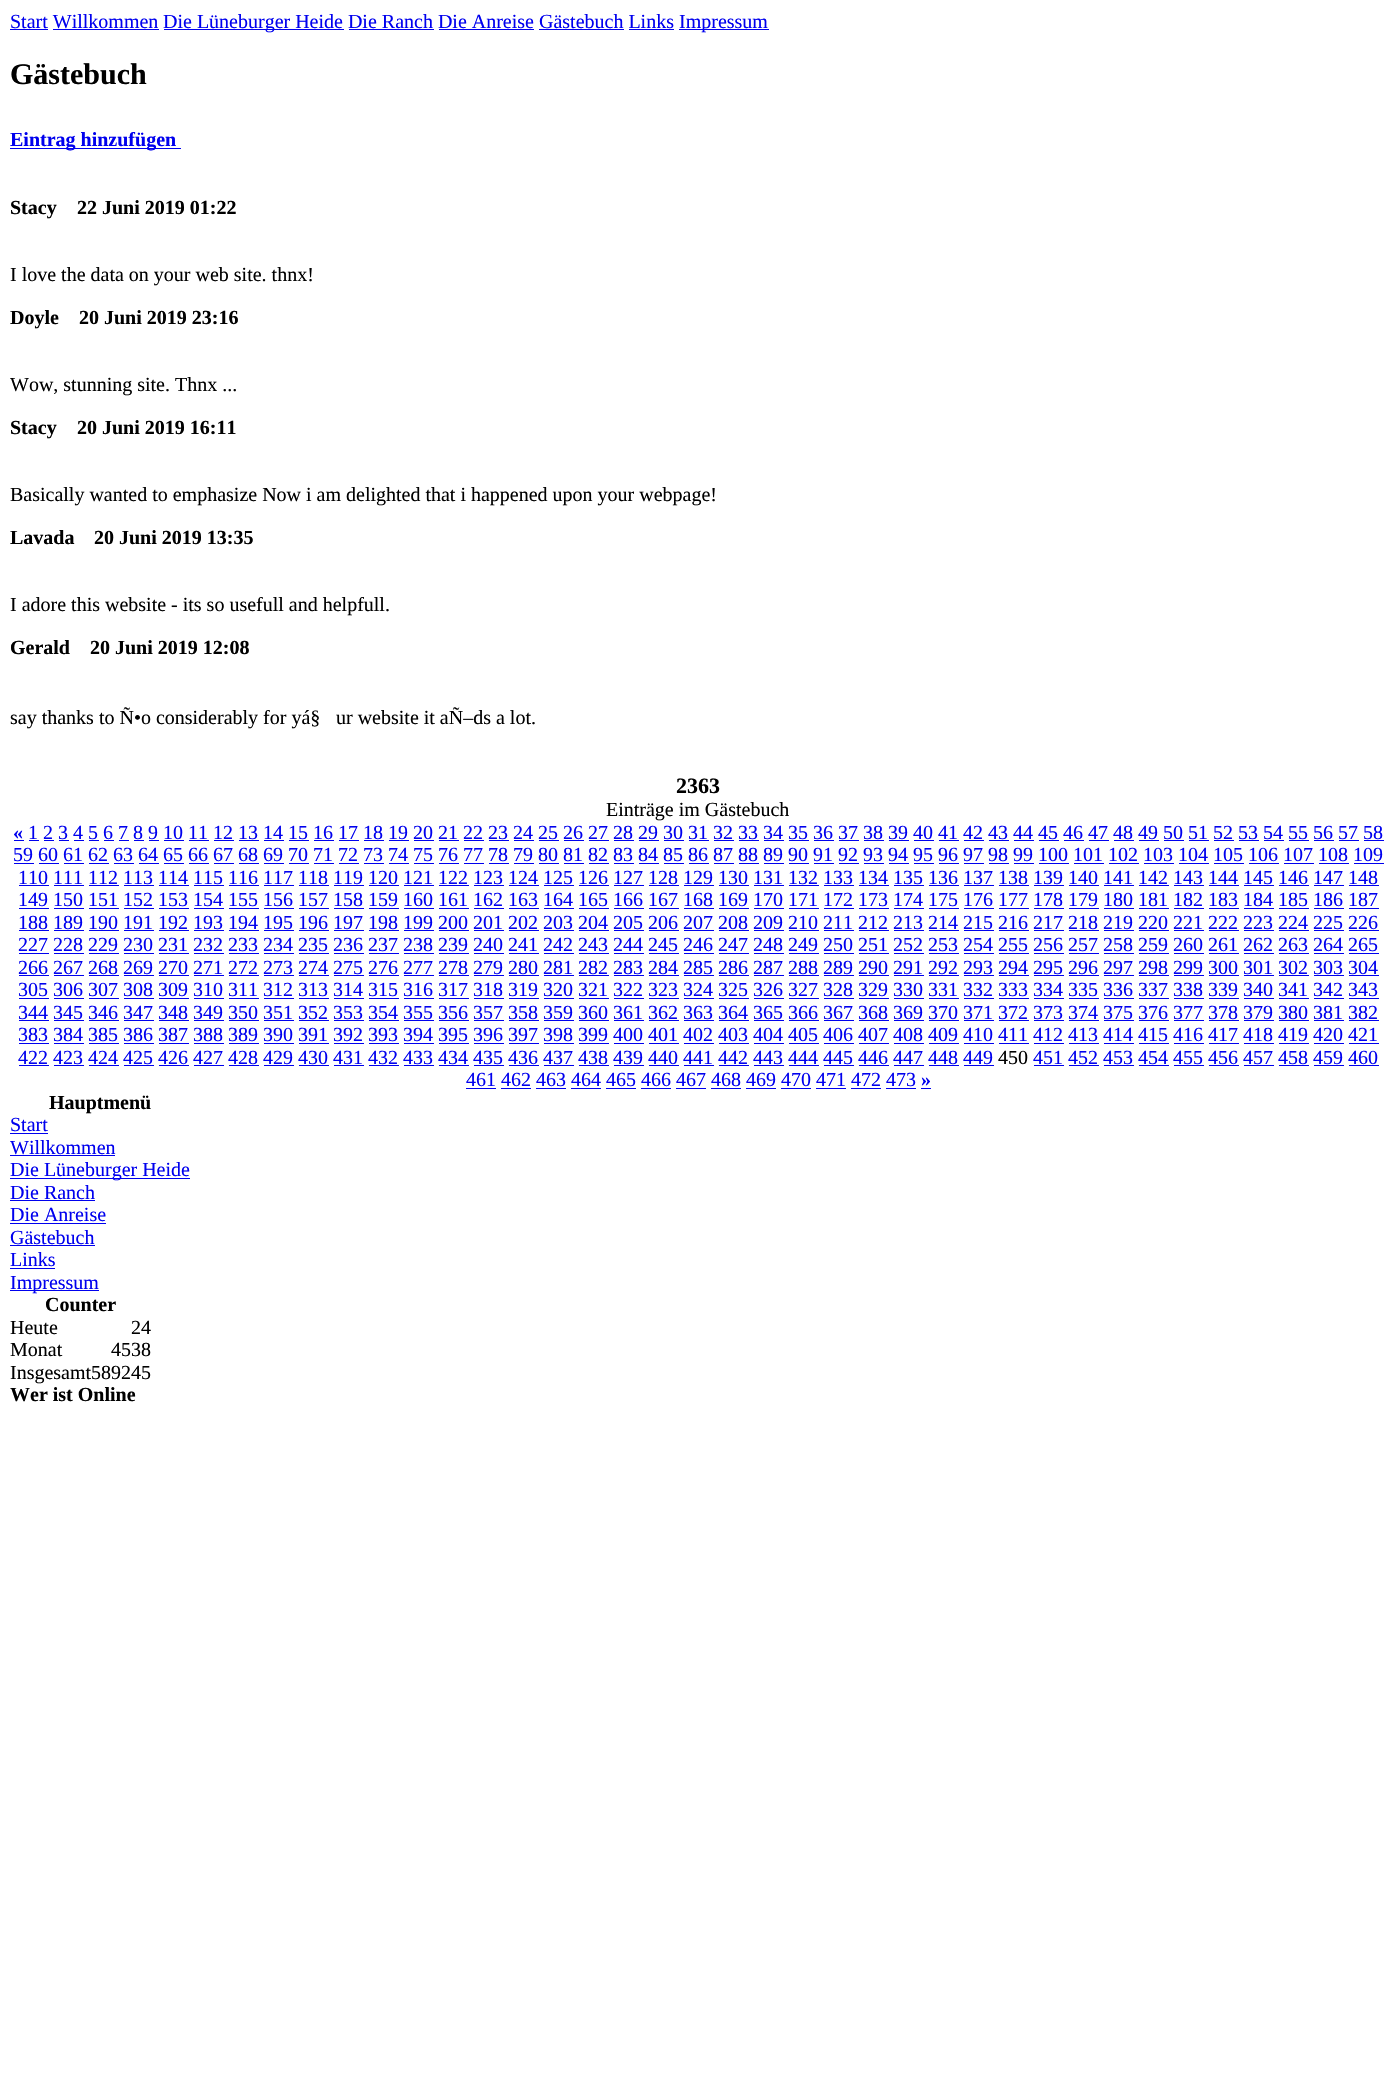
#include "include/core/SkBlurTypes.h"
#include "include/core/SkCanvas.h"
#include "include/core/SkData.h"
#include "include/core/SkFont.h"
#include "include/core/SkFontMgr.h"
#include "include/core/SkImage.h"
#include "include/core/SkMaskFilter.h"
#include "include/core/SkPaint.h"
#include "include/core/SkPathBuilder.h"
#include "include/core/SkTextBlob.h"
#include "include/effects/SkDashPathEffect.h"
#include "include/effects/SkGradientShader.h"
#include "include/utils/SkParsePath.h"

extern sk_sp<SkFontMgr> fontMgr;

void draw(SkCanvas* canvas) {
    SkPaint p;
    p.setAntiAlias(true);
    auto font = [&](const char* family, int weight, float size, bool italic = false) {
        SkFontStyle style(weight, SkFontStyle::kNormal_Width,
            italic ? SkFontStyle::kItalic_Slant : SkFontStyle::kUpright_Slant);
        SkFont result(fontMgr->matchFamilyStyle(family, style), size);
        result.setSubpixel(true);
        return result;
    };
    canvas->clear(0xFFFFFFFF);
    auto font1 = font("Liberation Serif", 400, 20);
    p.setColor(0xFF0000EE);
    canvas->drawString("Start Willkommen", 10, 28, font1, p);
    canvas->drawRect(SkRect::MakeLTRB(10, 29, 48, 30), p);
    canvas->drawRect(SkRect::MakeLTRB(164, 29, 344, 30), p);
    canvas->drawString("Die Lüneburger Heide Die Ranch Die Anreise Gästebuch Links", 163, 28, font1, p);
    canvas->drawRect(SkRect::MakeLTRB(679, 29, 769, 30), p);
    canvas->drawString("Impressum", 679, 28, font1, p);
    {
        const struct { float l, t, r, b; SkColor color; } items[] = {
            {53, 29, 159, 30, 0xFF0000EE},
            {349, 29, 434, 30, 0xFF0000EE},
            {439, 29, 534, 30, 0xFF0000EE},
            {539, 29, 624, 30, 0xFF0000EE},
            {629, 29, 674, 30, 0xFF0000EE},
        };
        for (auto [l, t, r, b, color] : items) {
            p.setColor(color);
            canvas->drawRect(SkRect::MakeLTRB(l, t, r, b), p);
        }
    }
    auto font2 = font("Liberation Serif", 700, 30);
    p.setColor(0xFF000000);
    canvas->drawString("Gästebuch", 10, 84, font2, p);
    p.setColor(0xFF0000EE);
    canvas->drawRect(SkRect::MakeLTRB(10, 148, 181, 149), p);
    auto font3 = font("Liberation Serif", 700, 20);
    canvas->drawString("Eintrag hinzufügen", 10, 146, font3, p);
    p.setColor(0xFF000000);
    canvas->drawString("Stacy", 10, 214, font3, p);
    canvas->drawString("22 Juni 2019 01:22", 77, 214, font3, p);
    canvas->drawString("I love the data on your web site. thnx!", 10, 281, font1, p);
    canvas->drawString("Doyle", 10, 324, font3, p);
    canvas->drawString("20 Juni 2019 23:16", 79, 324, font3, p);
    canvas->drawString("Wow, stunning site. Thnx ...", 10, 391, font1, p);
    canvas->drawString("Stacy", 10, 434, font3, p);
    canvas->drawString("20 Juni 2019 16:11", 77, 434, font3, p);
    canvas->drawString("Basically wanted to emphasize Now i am delighted that i happened upon your webpage!", 10, 501, font1, p);
    canvas->drawString("Lavada", 10, 544, font3, p);
    canvas->drawString("20 Juni 2019 13:35", 94, 544, font3, p);
    canvas->drawString("I adore this website - its so usefull and helpfull.", 10, 611, font1, p);
    canvas->drawString("Gerald", 10, 654, font3, p);
    canvas->drawString("20 Juni 2019 12:08", 90, 654, font3, p);
    canvas->drawString("say thanks to Ñ•o considerably for yá§", 10, 724, font1, p);
    canvas->drawString("ur website it aÑ–ds a lot.", 336, 724, font1, p);
    auto font4 = font("Liberation Serif", 700, 22);
    canvas->drawString("2363", 676, 793, font4, p);
    canvas->drawString("Einträge im Gästebuch", 606, 816, font1, p);
    p.setColor(0xFF0000EE);
    canvas->drawString("«", 13, 839, font3, p);
    canvas->drawRect(SkRect::MakeLTRB(14, 840, 24, 841), p);
    canvas->drawString("1 2 3 4 5 6 7 8 9 10 11 12 13 14 15 16 17 18 19 20 21 22 23 24 25 26 27 28 29 30 31 32 33 34 35 36 37 38 39 40 41 42 43 44 45 46 47 48 49 50 51 52 53 54 55 56 57 58", 28, 839, font1, p);
    {
        const struct { float l, t, r, b; SkColor color; } items[] = {
            {29, 840, 39, 841, 0xFF0000EE},
            {44, 840, 54, 841, 0xFF0000EE},
            {59, 840, 69, 841, 0xFF0000EE},
            {74, 840, 84, 841, 0xFF0000EE},
            {89, 840, 99, 841, 0xFF0000EE},
            {104, 840, 114, 841, 0xFF0000EE},
            {119, 840, 129, 841, 0xFF0000EE},
            {134, 840, 144, 841, 0xFF0000EE},
            {149, 840, 159, 841, 0xFF0000EE},
            {164, 840, 184, 841, 0xFF0000EE},
            {189, 840, 209, 841, 0xFF0000EE},
            {214, 840, 234, 841, 0xFF0000EE},
            {239, 840, 259, 841, 0xFF0000EE},
            {264, 840, 284, 841, 0xFF0000EE},
            {289, 840, 309, 841, 0xFF0000EE},
            {314, 840, 334, 841, 0xFF0000EE},
            {339, 840, 359, 841, 0xFF0000EE},
            {364, 840, 384, 841, 0xFF0000EE},
            {389, 840, 409, 841, 0xFF0000EE},
            {414, 840, 434, 841, 0xFF0000EE},
            {439, 840, 459, 841, 0xFF0000EE},
            {464, 840, 484, 841, 0xFF0000EE},
            {489, 840, 509, 841, 0xFF0000EE},
            {514, 840, 534, 841, 0xFF0000EE},
            {539, 840, 559, 841, 0xFF0000EE},
            {564, 840, 584, 841, 0xFF0000EE},
            {589, 840, 609, 841, 0xFF0000EE},
            {614, 840, 634, 841, 0xFF0000EE},
            {639, 840, 659, 841, 0xFF0000EE},
            {664, 840, 684, 841, 0xFF0000EE},
            {689, 840, 709, 841, 0xFF0000EE},
            {714, 840, 734, 841, 0xFF0000EE},
            {739, 840, 759, 841, 0xFF0000EE},
            {764, 840, 784, 841, 0xFF0000EE},
            {789, 840, 809, 841, 0xFF0000EE},
            {814, 840, 834, 841, 0xFF0000EE},
            {839, 840, 859, 841, 0xFF0000EE},
            {864, 840, 884, 841, 0xFF0000EE},
            {889, 840, 909, 841, 0xFF0000EE},
            {914, 840, 934, 841, 0xFF0000EE},
            {939, 840, 959, 841, 0xFF0000EE},
            {964, 840, 984, 841, 0xFF0000EE},
            {989, 840, 1009, 841, 0xFF0000EE},
            {1014, 840, 1034, 841, 0xFF0000EE},
            {1039, 840, 1059, 841, 0xFF0000EE},
            {1064, 840, 1084, 841, 0xFF0000EE},
            {1089, 840, 1109, 841, 0xFF0000EE},
            {1114, 840, 1134, 841, 0xFF0000EE},
            {1139, 840, 1159, 841, 0xFF0000EE},
            {1164, 840, 1184, 841, 0xFF0000EE},
            {1189, 840, 1209, 841, 0xFF0000EE},
            {1214, 840, 1234, 841, 0xFF0000EE},
            {1239, 840, 1259, 841, 0xFF0000EE},
            {1264, 840, 1284, 841, 0xFF0000EE},
            {1289, 840, 1309, 841, 0xFF0000EE},
            {1314, 840, 1334, 841, 0xFF0000EE},
            {1339, 840, 1359, 841, 0xFF0000EE},
            {1364, 840, 1384, 841, 0xFF0000EE},
        };
        for (auto [l, t, r, b, color] : items) {
            p.setColor(color);
            canvas->drawRect(SkRect::MakeLTRB(l, t, r, b), p);
        }
    }
    canvas->drawString("59 60 61 62 63 64 65 66 67 68 69 70 71 72 73 74 75 76 77 78 79 80 81 82 83 84 85 86 87 88 89 90 91 92 93 94 95 96 97 98 99 100 101 102 103 104 105 106 107 108 109", 13, 861, font1, p);
    {
        const struct { float l, t, r, b; SkColor color; } items[] = {
            {14, 863, 34, 864, 0xFF0000EE},
            {39, 863, 59, 864, 0xFF0000EE},
            {64, 863, 84, 864, 0xFF0000EE},
            {89, 863, 109, 864, 0xFF0000EE},
            {114, 863, 134, 864, 0xFF0000EE},
            {139, 863, 159, 864, 0xFF0000EE},
            {164, 863, 184, 864, 0xFF0000EE},
            {189, 863, 209, 864, 0xFF0000EE},
            {214, 863, 234, 864, 0xFF0000EE},
            {239, 863, 259, 864, 0xFF0000EE},
            {264, 863, 284, 864, 0xFF0000EE},
            {289, 863, 309, 864, 0xFF0000EE},
            {314, 863, 334, 864, 0xFF0000EE},
            {339, 863, 359, 864, 0xFF0000EE},
            {364, 863, 384, 864, 0xFF0000EE},
            {389, 863, 409, 864, 0xFF0000EE},
            {414, 863, 434, 864, 0xFF0000EE},
            {439, 863, 459, 864, 0xFF0000EE},
            {464, 863, 484, 864, 0xFF0000EE},
            {489, 863, 509, 864, 0xFF0000EE},
            {514, 863, 534, 864, 0xFF0000EE},
            {539, 863, 559, 864, 0xFF0000EE},
            {564, 863, 584, 864, 0xFF0000EE},
            {589, 863, 609, 864, 0xFF0000EE},
            {614, 863, 634, 864, 0xFF0000EE},
            {639, 863, 659, 864, 0xFF0000EE},
            {664, 863, 684, 864, 0xFF0000EE},
            {689, 863, 709, 864, 0xFF0000EE},
            {714, 863, 734, 864, 0xFF0000EE},
            {739, 863, 759, 864, 0xFF0000EE},
            {764, 863, 784, 864, 0xFF0000EE},
            {789, 863, 809, 864, 0xFF0000EE},
            {814, 863, 834, 864, 0xFF0000EE},
            {839, 863, 859, 864, 0xFF0000EE},
            {864, 863, 884, 864, 0xFF0000EE},
            {889, 863, 909, 864, 0xFF0000EE},
            {914, 863, 934, 864, 0xFF0000EE},
            {939, 863, 959, 864, 0xFF0000EE},
            {964, 863, 984, 864, 0xFF0000EE},
            {989, 863, 1009, 864, 0xFF0000EE},
            {1014, 863, 1034, 864, 0xFF0000EE},
            {1039, 863, 1069, 864, 0xFF0000EE},
            {1074, 863, 1104, 864, 0xFF0000EE},
            {1109, 863, 1139, 864, 0xFF0000EE},
            {1144, 863, 1174, 864, 0xFF0000EE},
            {1179, 863, 1209, 864, 0xFF0000EE},
            {1214, 863, 1244, 864, 0xFF0000EE},
            {1249, 863, 1279, 864, 0xFF0000EE},
            {1284, 863, 1314, 864, 0xFF0000EE},
            {1319, 863, 1349, 864, 0xFF0000EE},
            {1354, 863, 1384, 864, 0xFF0000EE},
        };
        for (auto [l, t, r, b, color] : items) {
            p.setColor(color);
            canvas->drawRect(SkRect::MakeLTRB(l, t, r, b), p);
        }
    }
    canvas->drawString("110 111 112 113 114 115 116 117 118 119 120 121 122 123 124 125 126 127 128 129 130 131 132 133 134 135 136 137 138 139 140 141 142 143 144 145 146 147 148", 18, 884, font1, p);
    {
        const struct { float l, t, r, b; SkColor color; } items[] = {
            {19, 885, 49, 886, 0xFF0000EE},
            {54, 885, 84, 886, 0xFF0000EE},
            {89, 885, 119, 886, 0xFF0000EE},
            {124, 885, 154, 886, 0xFF0000EE},
            {159, 885, 189, 886, 0xFF0000EE},
            {194, 885, 224, 886, 0xFF0000EE},
            {229, 885, 259, 886, 0xFF0000EE},
            {264, 885, 294, 886, 0xFF0000EE},
            {299, 885, 329, 886, 0xFF0000EE},
            {334, 885, 364, 886, 0xFF0000EE},
            {369, 885, 399, 886, 0xFF0000EE},
            {404, 885, 434, 886, 0xFF0000EE},
            {439, 885, 469, 886, 0xFF0000EE},
            {474, 885, 504, 886, 0xFF0000EE},
            {509, 885, 539, 886, 0xFF0000EE},
            {544, 885, 574, 886, 0xFF0000EE},
            {579, 885, 609, 886, 0xFF0000EE},
            {614, 885, 644, 886, 0xFF0000EE},
            {649, 885, 679, 886, 0xFF0000EE},
            {684, 885, 714, 886, 0xFF0000EE},
            {719, 885, 749, 886, 0xFF0000EE},
            {754, 885, 784, 886, 0xFF0000EE},
            {789, 885, 819, 886, 0xFF0000EE},
            {824, 885, 854, 886, 0xFF0000EE},
            {859, 885, 889, 886, 0xFF0000EE},
            {894, 885, 924, 886, 0xFF0000EE},
            {929, 885, 959, 886, 0xFF0000EE},
            {964, 885, 994, 886, 0xFF0000EE},
            {999, 885, 1029, 886, 0xFF0000EE},
            {1034, 885, 1064, 886, 0xFF0000EE},
            {1069, 885, 1099, 886, 0xFF0000EE},
            {1104, 885, 1134, 886, 0xFF0000EE},
            {1139, 885, 1169, 886, 0xFF0000EE},
            {1174, 885, 1204, 886, 0xFF0000EE},
            {1209, 885, 1239, 886, 0xFF0000EE},
            {1244, 885, 1274, 886, 0xFF0000EE},
            {1279, 885, 1309, 886, 0xFF0000EE},
            {1314, 885, 1344, 886, 0xFF0000EE},
            {1349, 885, 1379, 886, 0xFF0000EE},
        };
        for (auto [l, t, r, b, color] : items) {
            p.setColor(color);
            canvas->drawRect(SkRect::MakeLTRB(l, t, r, b), p);
        }
    }
    canvas->drawString("149 150 151 152 153 154 155 156 157 158 159 160 161 162 163 164 165 166 167 168 169 170 171 172 173 174 175 176 177 178 179 180 181 182 183 184 185 186 187", 18, 906, font1, p);
    {
        const struct { float l, t, r, b; SkColor color; } items[] = {
            {19, 908, 49, 909, 0xFF0000EE},
            {54, 908, 84, 909, 0xFF0000EE},
            {89, 908, 119, 909, 0xFF0000EE},
            {124, 908, 154, 909, 0xFF0000EE},
            {159, 908, 189, 909, 0xFF0000EE},
            {194, 908, 224, 909, 0xFF0000EE},
            {229, 908, 259, 909, 0xFF0000EE},
            {264, 908, 294, 909, 0xFF0000EE},
            {299, 908, 329, 909, 0xFF0000EE},
            {334, 908, 364, 909, 0xFF0000EE},
            {369, 908, 399, 909, 0xFF0000EE},
            {404, 908, 434, 909, 0xFF0000EE},
            {439, 908, 469, 909, 0xFF0000EE},
            {474, 908, 504, 909, 0xFF0000EE},
            {509, 908, 539, 909, 0xFF0000EE},
            {544, 908, 574, 909, 0xFF0000EE},
            {579, 908, 609, 909, 0xFF0000EE},
            {614, 908, 644, 909, 0xFF0000EE},
            {649, 908, 679, 909, 0xFF0000EE},
            {684, 908, 714, 909, 0xFF0000EE},
            {719, 908, 749, 909, 0xFF0000EE},
            {754, 908, 784, 909, 0xFF0000EE},
            {789, 908, 819, 909, 0xFF0000EE},
            {824, 908, 854, 909, 0xFF0000EE},
            {859, 908, 889, 909, 0xFF0000EE},
            {894, 908, 924, 909, 0xFF0000EE},
            {929, 908, 959, 909, 0xFF0000EE},
            {964, 908, 994, 909, 0xFF0000EE},
            {999, 908, 1029, 909, 0xFF0000EE},
            {1034, 908, 1064, 909, 0xFF0000EE},
            {1069, 908, 1099, 909, 0xFF0000EE},
            {1104, 908, 1134, 909, 0xFF0000EE},
            {1139, 908, 1169, 909, 0xFF0000EE},
            {1174, 908, 1204, 909, 0xFF0000EE},
            {1209, 908, 1239, 909, 0xFF0000EE},
            {1244, 908, 1274, 909, 0xFF0000EE},
            {1279, 908, 1309, 909, 0xFF0000EE},
            {1314, 908, 1344, 909, 0xFF0000EE},
            {1349, 908, 1379, 909, 0xFF0000EE},
        };
        for (auto [l, t, r, b, color] : items) {
            p.setColor(color);
            canvas->drawRect(SkRect::MakeLTRB(l, t, r, b), p);
        }
    }
    canvas->drawString("188 189 190 191 192 193 194 195 196 197 198 199 200 201 202 203 204 205 206 207 208 209 210 211 212 213 214 215 216 217 218 219 220 221 222 223 224 225 226", 18, 929, font1, p);
    {
        const struct { float l, t, r, b; SkColor color; } items[] = {
            {19, 930, 49, 931, 0xFF0000EE},
            {54, 930, 84, 931, 0xFF0000EE},
            {89, 930, 119, 931, 0xFF0000EE},
            {124, 930, 154, 931, 0xFF0000EE},
            {159, 930, 189, 931, 0xFF0000EE},
            {194, 930, 224, 931, 0xFF0000EE},
            {229, 930, 259, 931, 0xFF0000EE},
            {264, 930, 294, 931, 0xFF0000EE},
            {299, 930, 329, 931, 0xFF0000EE},
            {334, 930, 364, 931, 0xFF0000EE},
            {369, 930, 399, 931, 0xFF0000EE},
            {404, 930, 434, 931, 0xFF0000EE},
            {439, 930, 469, 931, 0xFF0000EE},
            {474, 930, 504, 931, 0xFF0000EE},
            {509, 930, 539, 931, 0xFF0000EE},
            {544, 930, 574, 931, 0xFF0000EE},
            {579, 930, 609, 931, 0xFF0000EE},
            {614, 930, 644, 931, 0xFF0000EE},
            {649, 930, 679, 931, 0xFF0000EE},
            {684, 930, 714, 931, 0xFF0000EE},
            {719, 930, 749, 931, 0xFF0000EE},
            {754, 930, 784, 931, 0xFF0000EE},
            {789, 930, 819, 931, 0xFF0000EE},
            {824, 930, 854, 931, 0xFF0000EE},
            {859, 930, 889, 931, 0xFF0000EE},
            {894, 930, 924, 931, 0xFF0000EE},
            {929, 930, 959, 931, 0xFF0000EE},
            {964, 930, 994, 931, 0xFF0000EE},
            {999, 930, 1029, 931, 0xFF0000EE},
            {1034, 930, 1064, 931, 0xFF0000EE},
            {1069, 930, 1099, 931, 0xFF0000EE},
            {1104, 930, 1134, 931, 0xFF0000EE},
            {1139, 930, 1169, 931, 0xFF0000EE},
            {1174, 930, 1204, 931, 0xFF0000EE},
            {1209, 930, 1239, 931, 0xFF0000EE},
            {1244, 930, 1274, 931, 0xFF0000EE},
            {1279, 930, 1309, 931, 0xFF0000EE},
            {1314, 930, 1344, 931, 0xFF0000EE},
            {1349, 930, 1379, 931, 0xFF0000EE},
        };
        for (auto [l, t, r, b, color] : items) {
            p.setColor(color);
            canvas->drawRect(SkRect::MakeLTRB(l, t, r, b), p);
        }
    }
    canvas->drawString("227 228 229 230 231 232 233 234 235 236 237 238 239 240 241 242 243 244 245 246 247 248 249 250 251 252 253 254 255 256 257 258 259 260 261 262 263 264 265", 18, 951, font1, p);
    {
        const struct { float l, t, r, b; SkColor color; } items[] = {
            {19, 953, 49, 954, 0xFF0000EE},
            {54, 953, 84, 954, 0xFF0000EE},
            {89, 953, 119, 954, 0xFF0000EE},
            {124, 953, 154, 954, 0xFF0000EE},
            {159, 953, 189, 954, 0xFF0000EE},
            {194, 953, 224, 954, 0xFF0000EE},
            {229, 953, 259, 954, 0xFF0000EE},
            {264, 953, 294, 954, 0xFF0000EE},
            {299, 953, 329, 954, 0xFF0000EE},
            {334, 953, 364, 954, 0xFF0000EE},
            {369, 953, 399, 954, 0xFF0000EE},
            {404, 953, 434, 954, 0xFF0000EE},
            {439, 953, 469, 954, 0xFF0000EE},
            {474, 953, 504, 954, 0xFF0000EE},
            {509, 953, 539, 954, 0xFF0000EE},
            {544, 953, 574, 954, 0xFF0000EE},
            {579, 953, 609, 954, 0xFF0000EE},
            {614, 953, 644, 954, 0xFF0000EE},
            {649, 953, 679, 954, 0xFF0000EE},
            {684, 953, 714, 954, 0xFF0000EE},
            {719, 953, 749, 954, 0xFF0000EE},
            {754, 953, 784, 954, 0xFF0000EE},
            {789, 953, 819, 954, 0xFF0000EE},
            {824, 953, 854, 954, 0xFF0000EE},
            {859, 953, 889, 954, 0xFF0000EE},
            {894, 953, 924, 954, 0xFF0000EE},
            {929, 953, 959, 954, 0xFF0000EE},
            {964, 953, 994, 954, 0xFF0000EE},
            {999, 953, 1029, 954, 0xFF0000EE},
            {1034, 953, 1064, 954, 0xFF0000EE},
            {1069, 953, 1099, 954, 0xFF0000EE},
            {1104, 953, 1134, 954, 0xFF0000EE},
            {1139, 953, 1169, 954, 0xFF0000EE},
            {1174, 953, 1204, 954, 0xFF0000EE},
            {1209, 953, 1239, 954, 0xFF0000EE},
            {1244, 953, 1274, 954, 0xFF0000EE},
            {1279, 953, 1309, 954, 0xFF0000EE},
            {1314, 953, 1344, 954, 0xFF0000EE},
            {1349, 953, 1379, 954, 0xFF0000EE},
        };
        for (auto [l, t, r, b, color] : items) {
            p.setColor(color);
            canvas->drawRect(SkRect::MakeLTRB(l, t, r, b), p);
        }
    }
    canvas->drawString("266 267 268 269 270 271 272 273 274 275 276 277 278 279 280 281 282 283 284 285 286 287 288 289 290 291 292 293 294 295 296 297 298 299 300 301 302 303 304", 18, 974, font1, p);
    {
        const struct { float l, t, r, b; SkColor color; } items[] = {
            {19, 975, 49, 976, 0xFF0000EE},
            {54, 975, 84, 976, 0xFF0000EE},
            {89, 975, 119, 976, 0xFF0000EE},
            {124, 975, 154, 976, 0xFF0000EE},
            {159, 975, 189, 976, 0xFF0000EE},
            {194, 975, 224, 976, 0xFF0000EE},
            {229, 975, 259, 976, 0xFF0000EE},
            {264, 975, 294, 976, 0xFF0000EE},
            {299, 975, 329, 976, 0xFF0000EE},
            {334, 975, 364, 976, 0xFF0000EE},
            {369, 975, 399, 976, 0xFF0000EE},
            {404, 975, 434, 976, 0xFF0000EE},
            {439, 975, 469, 976, 0xFF0000EE},
            {474, 975, 504, 976, 0xFF0000EE},
            {509, 975, 539, 976, 0xFF0000EE},
            {544, 975, 574, 976, 0xFF0000EE},
            {579, 975, 609, 976, 0xFF0000EE},
            {614, 975, 644, 976, 0xFF0000EE},
            {649, 975, 679, 976, 0xFF0000EE},
            {684, 975, 714, 976, 0xFF0000EE},
            {719, 975, 749, 976, 0xFF0000EE},
            {754, 975, 784, 976, 0xFF0000EE},
            {789, 975, 819, 976, 0xFF0000EE},
            {824, 975, 854, 976, 0xFF0000EE},
            {859, 975, 889, 976, 0xFF0000EE},
            {894, 975, 924, 976, 0xFF0000EE},
            {929, 975, 959, 976, 0xFF0000EE},
            {964, 975, 994, 976, 0xFF0000EE},
            {999, 975, 1029, 976, 0xFF0000EE},
            {1034, 975, 1064, 976, 0xFF0000EE},
            {1069, 975, 1099, 976, 0xFF0000EE},
            {1104, 975, 1134, 976, 0xFF0000EE},
            {1139, 975, 1169, 976, 0xFF0000EE},
            {1174, 975, 1204, 976, 0xFF0000EE},
            {1209, 975, 1239, 976, 0xFF0000EE},
            {1244, 975, 1274, 976, 0xFF0000EE},
            {1279, 975, 1309, 976, 0xFF0000EE},
            {1314, 975, 1344, 976, 0xFF0000EE},
            {1349, 975, 1379, 976, 0xFF0000EE},
        };
        for (auto [l, t, r, b, color] : items) {
            p.setColor(color);
            canvas->drawRect(SkRect::MakeLTRB(l, t, r, b), p);
        }
    }
    canvas->drawString("305 306 307 308 309 310 311 312 313 314 315 316 317 318 319 320 321 322 323 324 325 326 327 328 329 330 331 332 333 334 335 336 337 338 339 340 341 342 343", 18, 996, font1, p);
    {
        const struct { float l, t, r, b; SkColor color; } items[] = {
            {19, 998, 49, 999, 0xFF0000EE},
            {54, 998, 84, 999, 0xFF0000EE},
            {89, 998, 119, 999, 0xFF0000EE},
            {124, 998, 154, 999, 0xFF0000EE},
            {159, 998, 189, 999, 0xFF0000EE},
            {194, 998, 224, 999, 0xFF0000EE},
            {229, 998, 259, 999, 0xFF0000EE},
            {264, 998, 294, 999, 0xFF0000EE},
            {299, 998, 329, 999, 0xFF0000EE},
            {334, 998, 364, 999, 0xFF0000EE},
            {369, 998, 399, 999, 0xFF0000EE},
            {404, 998, 434, 999, 0xFF0000EE},
            {439, 998, 469, 999, 0xFF0000EE},
            {474, 998, 504, 999, 0xFF0000EE},
            {509, 998, 539, 999, 0xFF0000EE},
            {544, 998, 574, 999, 0xFF0000EE},
            {579, 998, 609, 999, 0xFF0000EE},
            {614, 998, 644, 999, 0xFF0000EE},
            {649, 998, 679, 999, 0xFF0000EE},
            {684, 998, 714, 999, 0xFF0000EE},
            {719, 998, 749, 999, 0xFF0000EE},
            {754, 998, 784, 999, 0xFF0000EE},
            {789, 998, 819, 999, 0xFF0000EE},
            {824, 998, 854, 999, 0xFF0000EE},
            {859, 998, 889, 999, 0xFF0000EE},
            {894, 998, 924, 999, 0xFF0000EE},
            {929, 998, 959, 999, 0xFF0000EE},
            {964, 998, 994, 999, 0xFF0000EE},
            {999, 998, 1029, 999, 0xFF0000EE},
            {1034, 998, 1064, 999, 0xFF0000EE},
            {1069, 998, 1099, 999, 0xFF0000EE},
            {1104, 998, 1134, 999, 0xFF0000EE},
            {1139, 998, 1169, 999, 0xFF0000EE},
            {1174, 998, 1204, 999, 0xFF0000EE},
            {1209, 998, 1239, 999, 0xFF0000EE},
            {1244, 998, 1274, 999, 0xFF0000EE},
            {1279, 998, 1309, 999, 0xFF0000EE},
            {1314, 998, 1344, 999, 0xFF0000EE},
            {1349, 998, 1379, 999, 0xFF0000EE},
        };
        for (auto [l, t, r, b, color] : items) {
            p.setColor(color);
            canvas->drawRect(SkRect::MakeLTRB(l, t, r, b), p);
        }
    }
    canvas->drawString("344 345 346 347 348 349 350 351 352 353 354 355 356 357 358 359 360 361 362 363 364 365 366 367 368 369 370 371 372 373 374 375 376 377 378 379 380 381 382", 18, 1019, font1, p);
    {
        const struct { float l, t, r, b; SkColor color; } items[] = {
            {19, 1020, 49, 1021, 0xFF0000EE},
            {54, 1020, 84, 1021, 0xFF0000EE},
            {89, 1020, 119, 1021, 0xFF0000EE},
            {124, 1020, 154, 1021, 0xFF0000EE},
            {159, 1020, 189, 1021, 0xFF0000EE},
            {194, 1020, 224, 1021, 0xFF0000EE},
            {229, 1020, 259, 1021, 0xFF0000EE},
            {264, 1020, 294, 1021, 0xFF0000EE},
            {299, 1020, 329, 1021, 0xFF0000EE},
            {334, 1020, 364, 1021, 0xFF0000EE},
            {369, 1020, 399, 1021, 0xFF0000EE},
            {404, 1020, 434, 1021, 0xFF0000EE},
            {439, 1020, 469, 1021, 0xFF0000EE},
            {474, 1020, 504, 1021, 0xFF0000EE},
            {509, 1020, 539, 1021, 0xFF0000EE},
            {544, 1020, 574, 1021, 0xFF0000EE},
            {579, 1020, 609, 1021, 0xFF0000EE},
            {614, 1020, 644, 1021, 0xFF0000EE},
            {649, 1020, 679, 1021, 0xFF0000EE},
            {684, 1020, 714, 1021, 0xFF0000EE},
            {719, 1020, 749, 1021, 0xFF0000EE},
            {754, 1020, 784, 1021, 0xFF0000EE},
            {789, 1020, 819, 1021, 0xFF0000EE},
            {824, 1020, 854, 1021, 0xFF0000EE},
            {859, 1020, 889, 1021, 0xFF0000EE},
            {894, 1020, 924, 1021, 0xFF0000EE},
            {929, 1020, 959, 1021, 0xFF0000EE},
            {964, 1020, 994, 1021, 0xFF0000EE},
            {999, 1020, 1029, 1021, 0xFF0000EE},
            {1034, 1020, 1064, 1021, 0xFF0000EE},
            {1069, 1020, 1099, 1021, 0xFF0000EE},
            {1104, 1020, 1134, 1021, 0xFF0000EE},
            {1139, 1020, 1169, 1021, 0xFF0000EE},
            {1174, 1020, 1204, 1021, 0xFF0000EE},
            {1209, 1020, 1239, 1021, 0xFF0000EE},
            {1244, 1020, 1274, 1021, 0xFF0000EE},
            {1279, 1020, 1309, 1021, 0xFF0000EE},
            {1314, 1020, 1344, 1021, 0xFF0000EE},
            {1349, 1020, 1379, 1021, 0xFF0000EE},
        };
        for (auto [l, t, r, b, color] : items) {
            p.setColor(color);
            canvas->drawRect(SkRect::MakeLTRB(l, t, r, b), p);
        }
    }
    canvas->drawString("383 384 385 386 387 388 389 390 391 392 393 394 395 396 397 398 399 400 401 402 403 404 405 406 407 408 409 410 411 412 413 414 415 416 417 418 419 420 421", 18, 1041, font1, p);
    {
        const struct { float l, t, r, b; SkColor color; } items[] = {
            {19, 1043, 49, 1044, 0xFF0000EE},
            {54, 1043, 84, 1044, 0xFF0000EE},
            {89, 1043, 119, 1044, 0xFF0000EE},
            {124, 1043, 154, 1044, 0xFF0000EE},
            {159, 1043, 189, 1044, 0xFF0000EE},
            {194, 1043, 224, 1044, 0xFF0000EE},
            {229, 1043, 259, 1044, 0xFF0000EE},
            {264, 1043, 294, 1044, 0xFF0000EE},
            {299, 1043, 329, 1044, 0xFF0000EE},
            {334, 1043, 364, 1044, 0xFF0000EE},
            {369, 1043, 399, 1044, 0xFF0000EE},
            {404, 1043, 434, 1044, 0xFF0000EE},
            {439, 1043, 469, 1044, 0xFF0000EE},
            {474, 1043, 504, 1044, 0xFF0000EE},
            {509, 1043, 539, 1044, 0xFF0000EE},
            {544, 1043, 574, 1044, 0xFF0000EE},
            {579, 1043, 609, 1044, 0xFF0000EE},
            {614, 1043, 644, 1044, 0xFF0000EE},
            {649, 1043, 679, 1044, 0xFF0000EE},
            {684, 1043, 714, 1044, 0xFF0000EE},
            {719, 1043, 749, 1044, 0xFF0000EE},
            {754, 1043, 784, 1044, 0xFF0000EE},
            {789, 1043, 819, 1044, 0xFF0000EE},
            {824, 1043, 854, 1044, 0xFF0000EE},
            {859, 1043, 889, 1044, 0xFF0000EE},
            {894, 1043, 924, 1044, 0xFF0000EE},
            {929, 1043, 959, 1044, 0xFF0000EE},
            {964, 1043, 994, 1044, 0xFF0000EE},
            {999, 1043, 1029, 1044, 0xFF0000EE},
            {1034, 1043, 1064, 1044, 0xFF0000EE},
            {1069, 1043, 1099, 1044, 0xFF0000EE},
            {1104, 1043, 1134, 1044, 0xFF0000EE},
            {1139, 1043, 1169, 1044, 0xFF0000EE},
            {1174, 1043, 1204, 1044, 0xFF0000EE},
            {1209, 1043, 1239, 1044, 0xFF0000EE},
            {1244, 1043, 1274, 1044, 0xFF0000EE},
            {1279, 1043, 1309, 1044, 0xFF0000EE},
            {1314, 1043, 1344, 1044, 0xFF0000EE},
            {1349, 1043, 1379, 1044, 0xFF0000EE},
        };
        for (auto [l, t, r, b, color] : items) {
            p.setColor(color);
            canvas->drawRect(SkRect::MakeLTRB(l, t, r, b), p);
        }
    }
    canvas->drawString("422 423 424 425 426 427 428 429 430 431 432 433 434 435 436 437 438 439 440 441 442 443 444 445 446 447 448 449", 18, 1064, font1, p);
    canvas->drawRect(SkRect::MakeLTRB(19, 1065, 49, 1066), p);
    p.setColor(0xFF000000);
    canvas->drawString("450", 998, 1064, font1, p);
    p.setColor(0xFF0000EE);
    canvas->drawString("451 452 453 454 455 456 457 458 459 460", 1033, 1064, font1, p);
    {
        const struct { float l, t, r, b; SkColor color; } items[] = {
            {1034, 1065, 1064, 1066, 0xFF0000EE},
            {54, 1065, 84, 1066, 0xFF0000EE},
            {89, 1065, 119, 1066, 0xFF0000EE},
            {124, 1065, 154, 1066, 0xFF0000EE},
            {159, 1065, 189, 1066, 0xFF0000EE},
            {194, 1065, 224, 1066, 0xFF0000EE},
            {229, 1065, 259, 1066, 0xFF0000EE},
            {264, 1065, 294, 1066, 0xFF0000EE},
            {299, 1065, 329, 1066, 0xFF0000EE},
            {334, 1065, 364, 1066, 0xFF0000EE},
            {369, 1065, 399, 1066, 0xFF0000EE},
            {404, 1065, 434, 1066, 0xFF0000EE},
            {439, 1065, 469, 1066, 0xFF0000EE},
            {474, 1065, 504, 1066, 0xFF0000EE},
            {509, 1065, 539, 1066, 0xFF0000EE},
            {544, 1065, 574, 1066, 0xFF0000EE},
            {579, 1065, 609, 1066, 0xFF0000EE},
            {614, 1065, 644, 1066, 0xFF0000EE},
            {649, 1065, 679, 1066, 0xFF0000EE},
            {684, 1065, 714, 1066, 0xFF0000EE},
            {719, 1065, 749, 1066, 0xFF0000EE},
            {754, 1065, 784, 1066, 0xFF0000EE},
            {789, 1065, 819, 1066, 0xFF0000EE},
            {824, 1065, 854, 1066, 0xFF0000EE},
            {859, 1065, 889, 1066, 0xFF0000EE},
            {894, 1065, 924, 1066, 0xFF0000EE},
            {929, 1065, 959, 1066, 0xFF0000EE},
            {964, 1065, 994, 1066, 0xFF0000EE},
            {1069, 1065, 1099, 1066, 0xFF0000EE},
            {1104, 1065, 1134, 1066, 0xFF0000EE},
            {1139, 1065, 1169, 1066, 0xFF0000EE},
            {1174, 1065, 1204, 1066, 0xFF0000EE},
            {1209, 1065, 1239, 1066, 0xFF0000EE},
            {1244, 1065, 1274, 1066, 0xFF0000EE},
            {1279, 1065, 1309, 1066, 0xFF0000EE},
            {1314, 1065, 1344, 1066, 0xFF0000EE},
            {1349, 1065, 1379, 1066, 0xFF0000EE},
        };
        for (auto [l, t, r, b, color] : items) {
            p.setColor(color);
            canvas->drawRect(SkRect::MakeLTRB(l, t, r, b), p);
        }
    }
    canvas->drawString("461 462 463 464 465 466 467 468 469 470 471 472 473", 466, 1086, font1, p);
    canvas->drawRect(SkRect::MakeLTRB(466, 1088, 496, 1089), p);
    canvas->drawString("»", 921, 1086, font3, p);
    {
        const struct { float l, t, r, b; SkColor color; } items[] = {
            {921, 1088, 931, 1089, 0xFF0000EE},
            {501, 1088, 531, 1089, 0xFF0000EE},
            {536, 1088, 566, 1089, 0xFF0000EE},
            {571, 1088, 601, 1089, 0xFF0000EE},
            {606, 1088, 636, 1089, 0xFF0000EE},
            {641, 1088, 671, 1089, 0xFF0000EE},
            {676, 1088, 706, 1089, 0xFF0000EE},
            {711, 1088, 741, 1089, 0xFF0000EE},
            {746, 1088, 776, 1089, 0xFF0000EE},
            {781, 1088, 811, 1089, 0xFF0000EE},
            {816, 1088, 846, 1089, 0xFF0000EE},
            {851, 1088, 881, 1089, 0xFF0000EE},
            {886, 1088, 916, 1089, 0xFF0000EE},
        };
        for (auto [l, t, r, b, color] : items) {
            p.setColor(color);
            canvas->drawRect(SkRect::MakeLTRB(l, t, r, b), p);
        }
    }
    p.setColor(0xFF000000);
    canvas->drawString("Hauptmenü", 49, 1109, font3, p);
    p.setColor(0xFF0000EE);
    canvas->drawString("Start", 10, 1131, font1, p);
    canvas->drawRect(SkRect::MakeLTRB(10, 1133, 48, 1134), p);
    canvas->drawString("Willkommen", 10, 1154, font1, p);
    canvas->drawRect(SkRect::MakeLTRB(10, 1155, 115, 1156), p);
    canvas->drawRect(SkRect::MakeLTRB(10, 1178, 190, 1179), p);
    canvas->drawString("Die Lüneburger Heide", 10, 1176, font1, p);
    canvas->drawString("Die Ranch", 10, 1199, font1, p);
    canvas->drawRect(SkRect::MakeLTRB(10, 1200, 95, 1201), p);
    canvas->drawString("Die Anreise", 10, 1221, font1, p);
    canvas->drawRect(SkRect::MakeLTRB(10, 1223, 106, 1224), p);
    canvas->drawString("Gästebuch", 10, 1244, font1, p);
    canvas->drawRect(SkRect::MakeLTRB(10, 1245, 95, 1246), p);
    canvas->drawString("Links", 10, 1266, font1, p);
    canvas->drawRect(SkRect::MakeLTRB(10, 1268, 55, 1269), p);
    canvas->drawRect(SkRect::MakeLTRB(10, 1290, 99, 1291), p);
    canvas->drawString("Impressum", 10, 1289, font1, p);
    p.setColor(0xFF000000);
    canvas->drawString("Counter", 45, 1311, font3, p);
    {
        const struct { const char* s; float x, y; } items[] = {
            {"Heute", 10, 1334},
            {"24", 131, 1334},
            {"Monat", 10, 1356},
            {"4538", 111, 1356},
            {"Insgesamt589245", 10, 1379},
        };
        for (auto [s, x, y] : items) {
            canvas->drawString(s, x, y, font1, p);
        }
    }
    canvas->drawString("Wer ist Online", 10, 1401, font3, p);
}
